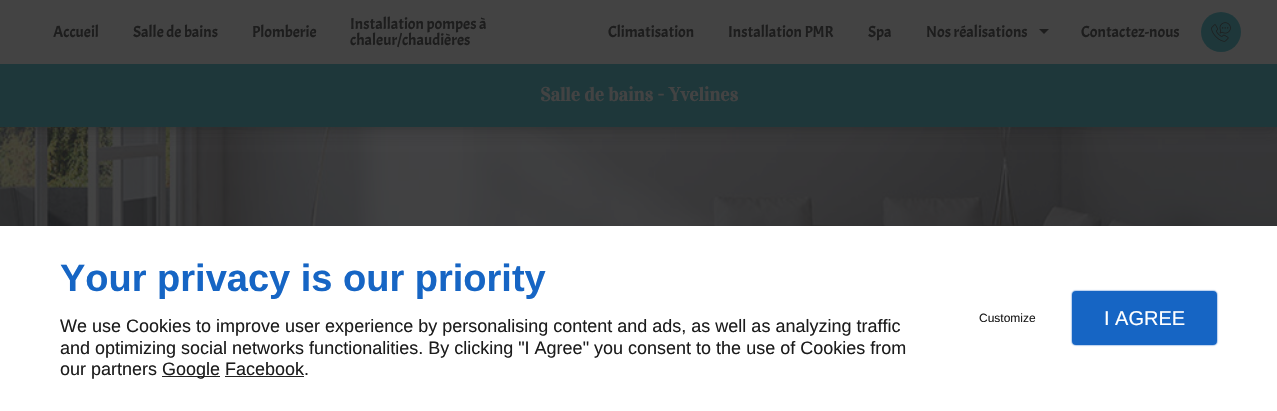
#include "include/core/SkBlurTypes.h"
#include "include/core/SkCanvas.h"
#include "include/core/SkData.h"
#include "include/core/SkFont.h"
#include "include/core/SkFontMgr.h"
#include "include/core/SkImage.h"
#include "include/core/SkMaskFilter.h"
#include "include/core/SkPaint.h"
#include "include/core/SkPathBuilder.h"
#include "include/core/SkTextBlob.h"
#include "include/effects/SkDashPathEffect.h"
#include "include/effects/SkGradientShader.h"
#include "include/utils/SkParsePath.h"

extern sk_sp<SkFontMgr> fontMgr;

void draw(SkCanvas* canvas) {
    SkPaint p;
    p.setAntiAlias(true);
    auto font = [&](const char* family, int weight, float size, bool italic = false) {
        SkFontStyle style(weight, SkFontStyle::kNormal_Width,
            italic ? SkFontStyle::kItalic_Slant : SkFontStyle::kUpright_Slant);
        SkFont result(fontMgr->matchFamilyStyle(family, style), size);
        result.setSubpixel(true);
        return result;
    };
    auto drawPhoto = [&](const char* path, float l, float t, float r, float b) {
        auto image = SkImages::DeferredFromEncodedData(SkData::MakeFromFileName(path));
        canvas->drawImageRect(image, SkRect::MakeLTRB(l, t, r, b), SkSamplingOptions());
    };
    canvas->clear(0xFFFFFFFF);
    drawPhoto("media/2.png", 0, 127, 1277, 226);
    p.setColor(0x1F1D1D1D);
    p.setMaskFilter(SkMaskFilter::MakeBlur(kNormal_SkBlurStyle, 5));
    canvas->drawRect(SkRect::MakeLTRB(0, 73, 1277, 137), p);
    p.setMaskFilter(nullptr);
    p.setColor(0x291D1D1D);
    p.setMaskFilter(SkMaskFilter::MakeBlur(kNormal_SkBlurStyle, 2.5f));
    canvas->drawRect(SkRect::MakeLTRB(0, 66, 1277, 130), p);
    p.setMaskFilter(nullptr);
    p.setColor(0xFF434343);
    canvas->drawRect(SkRect::MakeLTRB(0, 0, 1277, 64), p);
    auto font1 = font("Acme", 400, 16);
    p.setColor(0xFF1D1D1D);
    {
        const struct { const char* s; float x, y; } items[] = {
            {"Accueil", 53, 37},
            {"Salle de bains", 133, 37},
            {"Plomberie", 252, 37},
            {"Installation pompes à", 350, 29},
            {"chaleur/chaudières", 350, 45},
            {"Climatisation", 608, 37},
            {"Installation PMR", 728, 37},
            {"Spa", 868, 37},
            {"Nos réalisations", 926, 37},
        };
        for (auto [s, x, y] : items) {
            canvas->drawString(s, x, y, font1, p);
        }
    }
    canvas->drawPath(SkPathBuilder().moveTo(1039, 29).lineTo(1049, 29).lineTo(1044, 34).close().detach(), p);
    canvas->drawString("Contactez-nous", 1081, 37, font1, p);
    p.setColor(0xFF1E373A);
    canvas->drawCircle(1221, 32, 20, p);
    drawPhoto("media/1.png", 1211, 22, 1231, 42);
    canvas->drawRect(SkRect::MakeLTRB(0, 64, 1277, 127), p);
    auto font2 = font("Vidaloka", 700, 19.25f);
    p.setColor(0xFF434343);
    canvas->drawString("Salle de bains - Yvelines", 540, 101, font2, p);
    auto font3 = font("Liberation Sans", 700, 38);
    p.setColor(0xFF1665C4);
    canvas->drawString("Your privacy is our priority", 60, 291, font3, p);
    auto font4 = font("Liberation Sans", 400, 18);
    p.setColor(0xFF1D1D1D);
    {
        const struct { const char* s; float x, y; } items[] = {
            {"We use Cookies to improve user experience by personalising content and ads, as well as analyzing traffic", 60, 332},
            {"and optimizing social networks functionalities. By clicking \"I Agree\" you consent to the use of Cookies from", 60, 354},
            {"our partners", 60, 375},
        };
        for (auto [s, x, y] : items) {
            canvas->drawString(s, x, y, font4, p);
        }
    }
    p.setColor(0xFF222222);
    canvas->drawRect(SkRect::MakeLTRB(162, 376, 220, 377), p);
    p.setColor(0xFF1D1D1D);
    canvas->drawString("Google Facebook.", 162, 375, font4, p);
    p.setColor(0xFF222222);
    canvas->drawRect(SkRect::MakeLTRB(225, 376, 304, 377), p);
    auto font5 = font("Liberation Sans", 400, 12);
    p.setColor(0xFF1D1D1D);
    canvas->drawString("Customize", 979, 322, font5, p);
    p.setColor(0x4D1665C4);
    p.setMaskFilter(SkMaskFilter::MakeBlur(kNormal_SkBlurStyle, 0.5f));
    canvas->drawRoundRect(SkRect::MakeLTRB(1071, 290, 1218, 346), 5, 5, p);
    p.setMaskFilter(nullptr);
    p.setColor(0xFF1665C4);
    canvas->drawRoundRect(SkRect::MakeLTRB(1073, 292, 1216, 344), 3, 3, p);
    p.setStyle(SkPaint::kStroke_Style);
    p.setStrokeWidth(2);
    canvas->drawRoundRect(SkRect::MakeLTRB(1073, 292, 1216, 344), 3, 3, p);
    auto font6 = font("Liberation Sans", 400, 20);
    p.setStyle(SkPaint::kFill_Style);
    p.setColor(0xFFFFFFFF);
    canvas->drawString("I AGREE", 1104, 325, font6, p);
}
